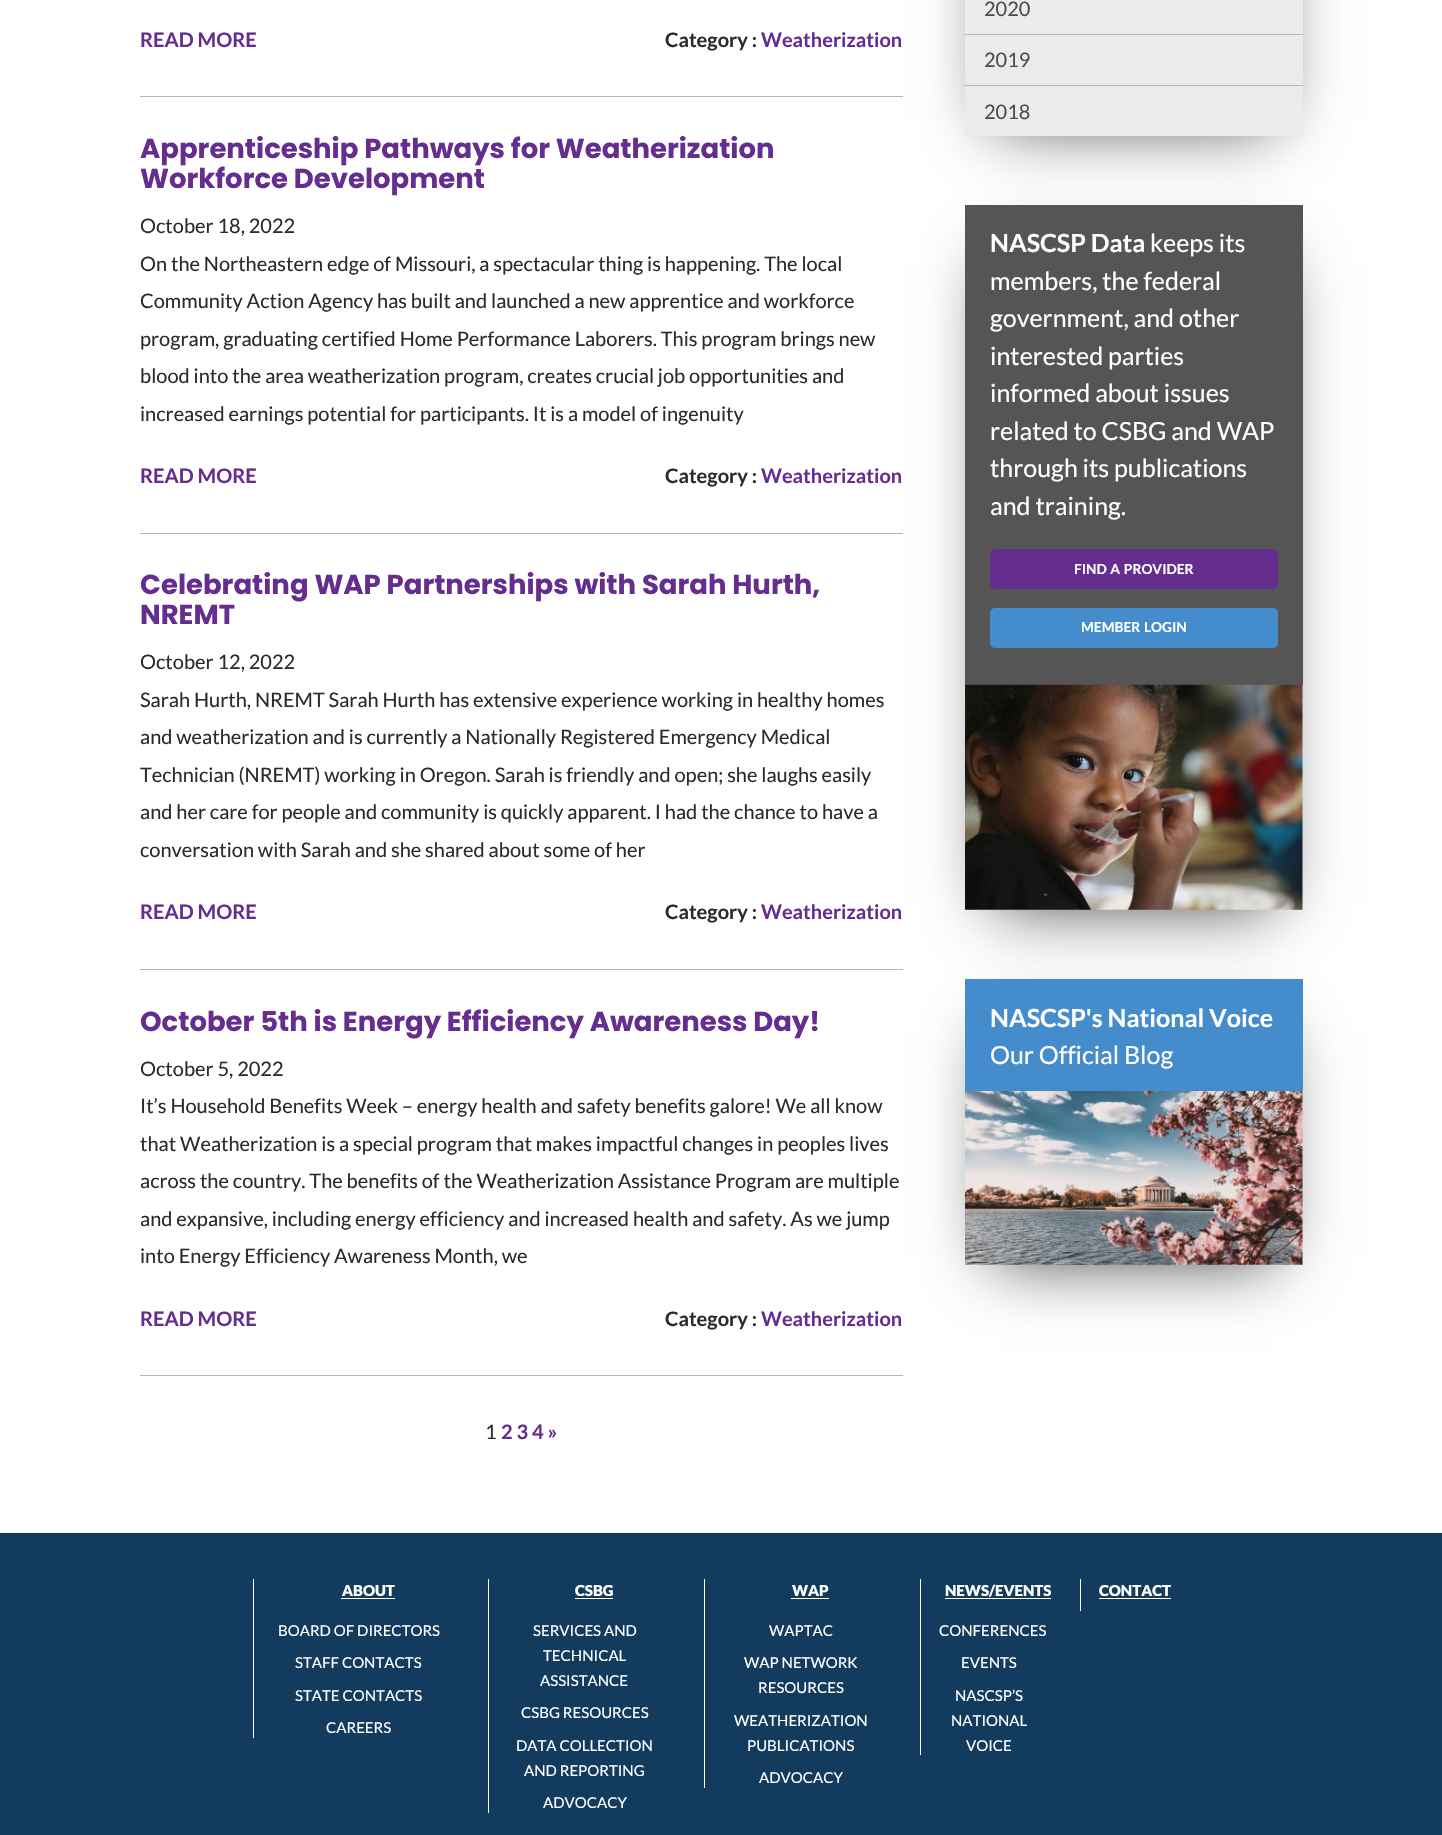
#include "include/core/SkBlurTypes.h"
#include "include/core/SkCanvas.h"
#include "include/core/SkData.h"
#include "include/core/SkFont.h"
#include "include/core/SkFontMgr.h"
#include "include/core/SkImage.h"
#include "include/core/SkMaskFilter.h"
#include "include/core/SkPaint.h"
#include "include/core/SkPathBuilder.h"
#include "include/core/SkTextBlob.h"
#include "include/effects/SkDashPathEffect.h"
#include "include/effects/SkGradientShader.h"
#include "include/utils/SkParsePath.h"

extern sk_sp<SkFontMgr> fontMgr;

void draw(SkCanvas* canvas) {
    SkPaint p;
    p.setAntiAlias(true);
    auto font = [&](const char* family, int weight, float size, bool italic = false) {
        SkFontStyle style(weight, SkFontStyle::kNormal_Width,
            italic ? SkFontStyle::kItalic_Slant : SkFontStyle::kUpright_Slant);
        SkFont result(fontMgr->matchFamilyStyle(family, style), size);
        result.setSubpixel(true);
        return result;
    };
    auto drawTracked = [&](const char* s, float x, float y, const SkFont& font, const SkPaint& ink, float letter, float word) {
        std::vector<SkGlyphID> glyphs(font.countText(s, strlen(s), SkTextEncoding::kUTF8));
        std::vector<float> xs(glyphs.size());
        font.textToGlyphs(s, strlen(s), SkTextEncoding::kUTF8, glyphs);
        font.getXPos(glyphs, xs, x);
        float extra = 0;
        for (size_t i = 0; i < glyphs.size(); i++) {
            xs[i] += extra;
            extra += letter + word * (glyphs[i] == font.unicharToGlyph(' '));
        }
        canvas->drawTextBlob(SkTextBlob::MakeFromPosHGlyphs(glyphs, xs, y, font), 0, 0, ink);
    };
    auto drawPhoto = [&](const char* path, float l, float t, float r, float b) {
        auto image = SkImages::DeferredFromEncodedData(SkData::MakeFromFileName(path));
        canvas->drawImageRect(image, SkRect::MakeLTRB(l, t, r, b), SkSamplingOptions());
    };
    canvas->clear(0xFFFFFFFF);
    auto font1 = font("Lato", 700, 20);
    p.setColor(0xFF662D91);
    canvas->drawString("READ MORE", 140, 47, font1, p);
    p.setColor(0xFF2B2B2B);
    canvas->drawString("Category :", 665, 47, font1, p);
    p.setColor(0xFF662D91);
    canvas->drawString("Weatherization", 761, 47, font1, p);
    p.setColor(0xFFB7B7B7);
    canvas->drawRect(SkRect::MakeLTRB(140, 96, 903, 97), p);
    auto font2 = font("Poppins", 700, 27.5f);
    p.setColor(0xFF662D91);
    canvas->drawString("Apprenticeship Pathways for Weatherization", 140, 158, font2, p);
    canvas->drawString("Workforce Development", 140, 188, font2, p);
    auto font3 = font("Lato", 400, 20);
    p.setColor(0xFF2B2B2B);
    {
        const struct { const char* s; float x, y; } items[] = {
            {"October 18, 2022", 140, 233},
            {"On the Northeastern edge of Missouri, a spectacular thing is happening. The local", 140, 271},
            {"Community Action Agency has built and launched a new apprentice and workforce", 140, 308},
            {"program, graduating certified Home Performance Laborers. This program brings new", 140, 346},
            {"blood into the area weatherization program, creates crucial job opportunities and", 140, 383},
            {"increased earnings potential for participants. It is a model of ingenuity", 140, 421},
        };
        for (auto [s, x, y] : items) {
            canvas->drawString(s, x, y, font3, p);
        }
    }
    p.setColor(0xFF662D91);
    canvas->drawString("READ MORE", 140, 483, font1, p);
    p.setColor(0xFF2B2B2B);
    canvas->drawString("Category :", 665, 483, font1, p);
    p.setColor(0xFF662D91);
    canvas->drawString("Weatherization", 761, 483, font1, p);
    p.setColor(0xFFB7B7B7);
    canvas->drawRect(SkRect::MakeLTRB(140, 533, 903, 534), p);
    p.setColor(0xFF662D91);
    canvas->drawString("Celebrating WAP Partnerships with Sarah Hurth,", 140, 594, font2, p);
    canvas->drawString("NREMT", 140, 624, font2, p);
    p.setColor(0xFF2B2B2B);
    {
        const struct { const char* s; float x, y; } items[] = {
            {"October 12, 2022", 140, 669},
            {"Sarah Hurth, NREMT Sarah Hurth has extensive experience working in healthy homes", 140, 707},
            {"and weatherization and is currently a Nationally Registered Emergency Medical", 140, 744},
            {"Technician (NREMT) working in Oregon. Sarah is friendly and open; she laughs easily", 140, 782},
            {"and her care for people and community is quickly apparent. I had the chance to have a", 140, 819},
            {"conversation with Sarah and she shared about some of her", 140, 857},
        };
        for (auto [s, x, y] : items) {
            canvas->drawString(s, x, y, font3, p);
        }
    }
    p.setColor(0xFF662D91);
    canvas->drawString("READ MORE", 140, 919, font1, p);
    p.setColor(0xFF2B2B2B);
    canvas->drawString("Category :", 665, 919, font1, p);
    p.setColor(0xFF662D91);
    canvas->drawString("Weatherization", 761, 919, font1, p);
    p.setColor(0xFFB7B7B7);
    canvas->drawRect(SkRect::MakeLTRB(140, 969, 903, 970), p);
    p.setColor(0xFF662D91);
    canvas->drawString("October 5th is Energy Efficiency Awareness Day!", 140, 1031, font2, p);
    p.setColor(0xFF2B2B2B);
    {
        const struct { const char* s; float x, y; } items[] = {
            {"October 5, 2022", 140, 1076},
            {"It’s Household Benefits Week – energy health and safety benefits galore! We all know", 140, 1113},
            {"that Weatherization is a special program that makes impactful changes in peoples lives", 140, 1151},
            {"across the country. The benefits of the Weatherization Assistance Program are multiple", 140, 1188},
            {"and expansive, including energy efficiency and increased health and safety. As we jump", 140, 1226},
            {"into Energy Efficiency Awareness Month, we", 140, 1263},
        };
        for (auto [s, x, y] : items) {
            canvas->drawString(s, x, y, font3, p);
        }
    }
    p.setColor(0xFF662D91);
    canvas->drawString("READ MORE", 140, 1326, font1, p);
    p.setColor(0xFF2B2B2B);
    canvas->drawString("Category :", 665, 1326, font1, p);
    p.setColor(0xFF662D91);
    canvas->drawString("Weatherization", 761, 1326, font1, p);
    p.setColor(0xFFB7B7B7);
    canvas->drawRect(SkRect::MakeLTRB(140, 1375, 903, 1376), p);
    p.setColor(0xFF2B2B2B);
    canvas->drawString("1", 485, 1439, font3, p);
    p.setColor(0xFF662D91);
    canvas->drawString("2 3 4 »", 501, 1439, font1, p);
    p.setColor(0xBF000000);
    p.setMaskFilter(SkMaskFilter::MakeBlur(kNormal_SkBlurStyle, 32));
    canvas->drawRect(SkRect::MakeLTRB(994, -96, 1274, 124), p);
    p.setMaskFilter(nullptr);
    p.setColor(0xFFEBEBEB);
    canvas->drawRect(SkRect::MakeLTRB(965, 0, 1303, 34), p);
    p.setColor(0xFFB7B7B7);
    canvas->drawRect(SkRect::MakeLTRB(965, 34, 1303, 35), p);
    p.setColor(0xFF4D4D4D);
    canvas->drawString("2020", 984, 16, font3, p);
    p.setColor(0xFFEBEBEB);
    canvas->drawRect(SkRect::MakeLTRB(965, 35, 1303, 85), p);
    p.setColor(0xFFB7B7B7);
    canvas->drawRect(SkRect::MakeLTRB(965, 85, 1303, 86), p);
    p.setColor(0xFF4D4D4D);
    canvas->drawString("2019", 984, 67, font3, p);
    p.setColor(0xFFEBEBEB);
    canvas->drawRect(SkRect::MakeLTRB(965, 86, 1303, 136), p);
    p.setColor(0xFF4D4D4D);
    canvas->drawString("2018", 984, 119, font3, p);
    p.setColor(0xBF000000);
    p.setMaskFilter(SkMaskFilter::MakeBlur(kNormal_SkBlurStyle, 32));
    canvas->drawRect(SkRect::MakeLTRB(994, 259, 1274, 906), p);
    p.setMaskFilter(nullptr);
    p.setColor(0xFF555555);
    canvas->drawRect(SkRect::MakeLTRB(965, 205, 1303, 685), p);
    auto font4 = font("Lato", 700, 25);
    p.setColor(0xFFFFFFFF);
    canvas->drawString("NASCSP Data", 990, 252, font4, p);
    auto font5 = font("Lato", 400, 25);
    {
        const struct { const char* s; float x, y; } items[] = {
            {"keeps its", 1150, 252},
            {"members, the federal", 990, 290},
            {"government, and other", 990, 327},
            {"interested parties", 990, 365},
            {"informed about issues", 990, 402},
            {"related to CSBG and WAP", 990, 440},
            {"through its publications", 990, 477},
            {"and training.", 990, 515},
        };
        for (auto [s, x, y] : items) {
            canvas->drawString(s, x, y, font5, p);
        }
    }
    p.setColor(0xFF662D91);
    canvas->drawRoundRect(SkRect::MakeLTRB(990, 549, 1278, 589), 5, 5, p);
    auto font6 = font("Lato", 700, 13.75f);
    p.setColor(0xFFFFFFFF);
    drawTracked("FIND A PROVIDER", 1074, 574, font6, p, 0, 1);
    p.setColor(0xFF448CCB);
    canvas->drawRoundRect(SkRect::MakeLTRB(990, 608, 1278, 648), 5, 5, p);
    p.setColor(0xFFFFFFFF);
    drawTracked("MEMBER LOGIN", 1081, 632, font6, p, 0, 1);
    drawPhoto("media/1.png", 965, 684, 1303, 910);
    p.setColor(0xBF000000);
    p.setMaskFilter(SkMaskFilter::MakeBlur(kNormal_SkBlurStyle, 32));
    canvas->drawRect(SkRect::MakeLTRB(994, 1033, 1274, 1261), p);
    p.setMaskFilter(nullptr);
    p.setColor(0xFF448CCB);
    canvas->drawRect(SkRect::MakeLTRB(965, 979, 1303, 1091), p);
    p.setColor(0xFFFFFFFF);
    canvas->drawString("NASCSP's National Voice", 990, 1027, font4, p);
    canvas->drawString("Our Official Blog", 990, 1064, font5, p);
    drawPhoto("media/2.png", 965, 1091, 1303, 1265);
    p.setColor(0xFF133B5E);
    canvas->drawRect(SkRect::MakeLTRB(0, 1533, 1442, 1835), p);
    p.setColor(0xFFFFFFFF);
    canvas->drawRect(SkRect::MakeLTRB(253, 1579, 254, 1738), p);
    auto font7 = font("Lato", 900, 15);
    canvas->drawString("ABOUT", 342, 1596, font7, p);
    canvas->drawRect(SkRect::MakeLTRB(341, 1598, 395, 1599), p);
    auto font8 = font("Lato", 400, 15);
    {
        const struct { const char* s; float x, y; } items[] = {
            {"BOARD OF DIRECTORS", 278, 1636},
            {"STAFF CONTACTS", 295, 1668},
            {"STATE CONTACTS", 295, 1701},
            {"CAREERS", 326, 1733},
        };
        for (auto [s, x, y] : items) {
            canvas->drawString(s, x, y, font8, p);
        }
    }
    canvas->drawRect(SkRect::MakeLTRB(488, 1579, 489, 1813), p);
    canvas->drawString("CSBG", 575, 1596, font7, p);
    canvas->drawRect(SkRect::MakeLTRB(575, 1598, 613, 1599), p);
    {
        const struct { const char* s; float x, y; } items[] = {
            {"SERVICES AND", 533, 1636},
            {"TECHNICAL", 543, 1661},
            {"ASSISTANCE", 540, 1686},
            {"CSBG RESOURCES", 521, 1718},
            {"DATA COLLECTION", 516, 1751},
            {"AND REPORTING", 524, 1776},
            {"ADVOCACY", 543, 1808},
        };
        for (auto [s, x, y] : items) {
            canvas->drawString(s, x, y, font8, p);
        }
    }
    canvas->drawRect(SkRect::MakeLTRB(704, 1579, 705, 1788), p);
    canvas->drawString("WAP", 792, 1596, font7, p);
    canvas->drawRect(SkRect::MakeLTRB(791, 1598, 829, 1599), p);
    {
        const struct { const char* s; float x, y; } items[] = {
            {"WAPTAC", 769, 1636},
            {"WAP NETWORK", 744, 1668},
            {"RESOURCES", 758, 1693},
            {"WEATHERIZATION", 734, 1726},
            {"PUBLICATIONS", 747, 1751},
            {"ADVOCACY", 759, 1783},
        };
        for (auto [s, x, y] : items) {
            canvas->drawString(s, x, y, font8, p);
        }
    }
    canvas->drawRect(SkRect::MakeLTRB(920, 1579, 921, 1755), p);
    canvas->drawString("NEWS/EVENTS", 945, 1596, font7, p);
    canvas->drawRect(SkRect::MakeLTRB(945, 1598, 1051, 1599), p);
    {
        const struct { const char* s; float x, y; } items[] = {
            {"CONFERENCES", 939, 1636},
            {"EVENTS", 961, 1668},
            {"NASCSP’S", 955, 1701},
            {"NATIONAL", 951, 1726},
            {"VOICE", 966, 1751},
        };
        for (auto [s, x, y] : items) {
            canvas->drawString(s, x, y, font8, p);
        }
    }
    canvas->drawRect(SkRect::MakeLTRB(1080, 1579, 1081, 1611), p);
    canvas->drawString("CONTACT", 1099, 1596, font7, p);
    canvas->drawRect(SkRect::MakeLTRB(1099, 1598, 1171, 1599), p);
}
